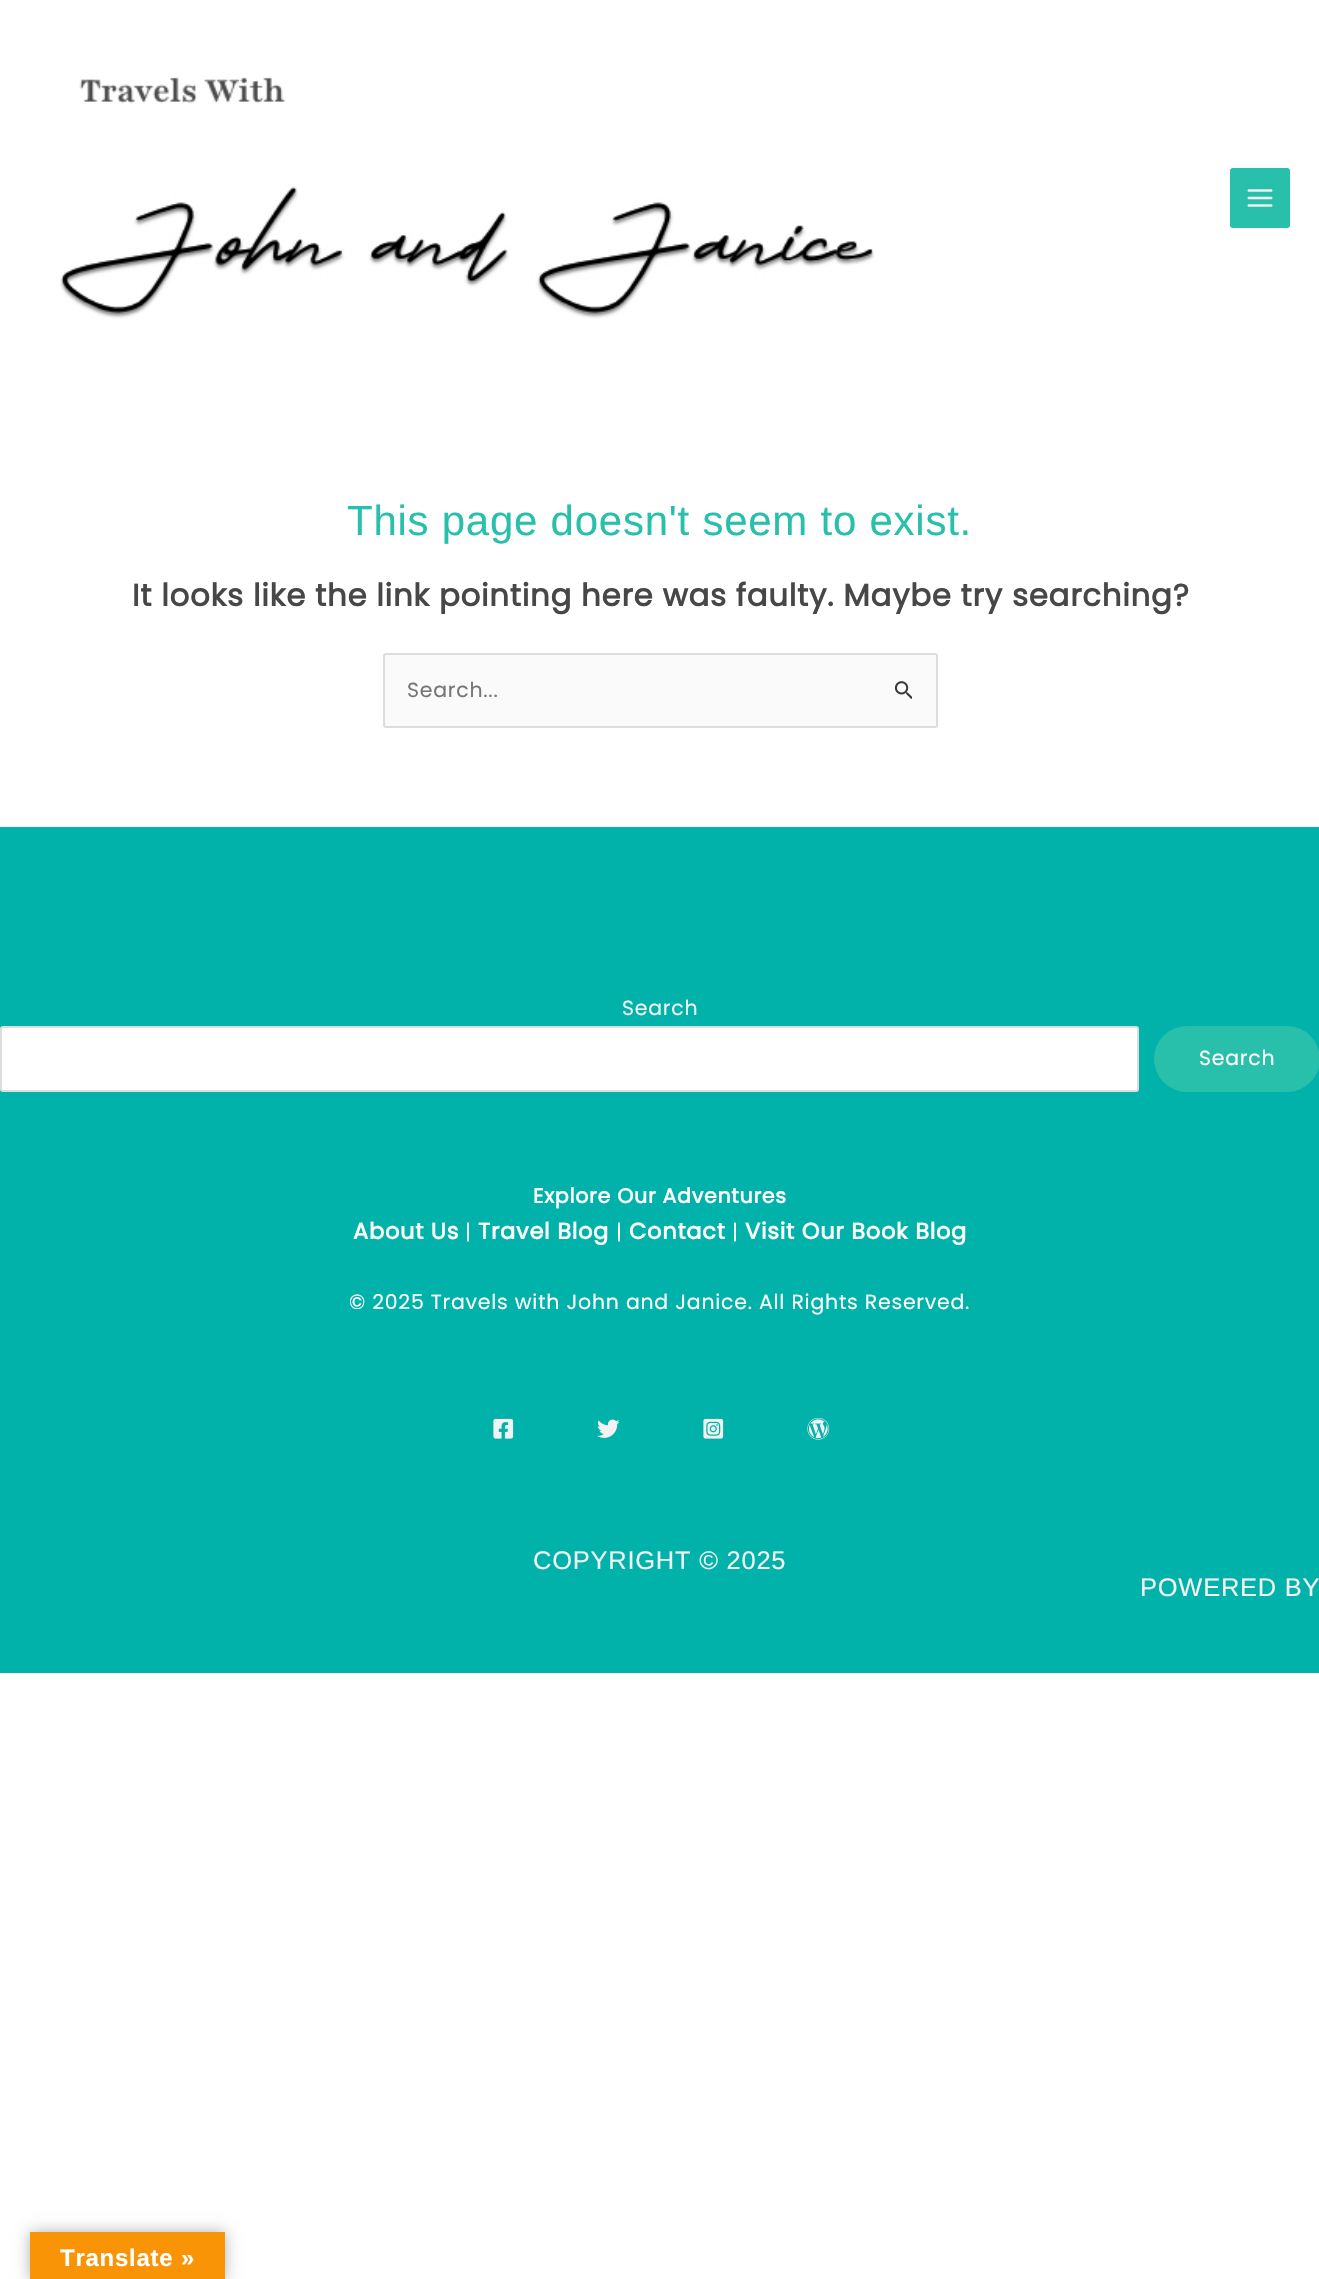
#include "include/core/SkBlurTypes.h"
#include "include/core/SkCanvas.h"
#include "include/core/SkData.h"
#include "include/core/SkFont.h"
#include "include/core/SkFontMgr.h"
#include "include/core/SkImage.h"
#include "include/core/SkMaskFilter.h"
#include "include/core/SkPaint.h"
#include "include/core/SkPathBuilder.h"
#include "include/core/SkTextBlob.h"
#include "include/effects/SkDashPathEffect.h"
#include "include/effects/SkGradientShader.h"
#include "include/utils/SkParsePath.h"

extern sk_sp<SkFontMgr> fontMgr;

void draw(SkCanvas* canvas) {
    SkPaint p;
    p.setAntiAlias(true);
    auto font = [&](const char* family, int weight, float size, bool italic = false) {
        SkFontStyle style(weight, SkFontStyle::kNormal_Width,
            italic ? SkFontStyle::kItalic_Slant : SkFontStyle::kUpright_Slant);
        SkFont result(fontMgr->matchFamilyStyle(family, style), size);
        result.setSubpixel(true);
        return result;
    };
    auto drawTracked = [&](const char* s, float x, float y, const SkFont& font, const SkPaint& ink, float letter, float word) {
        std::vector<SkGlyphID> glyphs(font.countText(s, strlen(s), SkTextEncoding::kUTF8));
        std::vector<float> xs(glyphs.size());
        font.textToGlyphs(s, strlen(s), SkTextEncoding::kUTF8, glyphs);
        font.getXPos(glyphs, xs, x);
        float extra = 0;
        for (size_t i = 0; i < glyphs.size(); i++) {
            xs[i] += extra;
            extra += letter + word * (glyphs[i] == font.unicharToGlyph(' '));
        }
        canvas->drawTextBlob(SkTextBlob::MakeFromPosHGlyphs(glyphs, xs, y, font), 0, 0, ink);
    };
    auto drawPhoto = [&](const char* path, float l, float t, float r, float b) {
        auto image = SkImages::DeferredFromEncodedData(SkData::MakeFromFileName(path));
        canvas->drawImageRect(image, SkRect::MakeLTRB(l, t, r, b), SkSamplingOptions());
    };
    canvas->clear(0xFFFFFFFF);
    drawPhoto("media/1.png", 59, 76, 875, 319);
    p.setColor(0xFF28BFAB);
    canvas->drawRoundRect(SkRect::MakeLTRB(1230, 168, 1290, 228), 3, 3, p);
    drawPhoto("media/2.png", 1247, 189, 1273, 207);
    auto font1 = font("Liberation Sans", 400, 42);
    drawTracked("This page doesn't seem to exist.", 347, 535, font1, p, 0.75f, 0);
    auto font2 = font("Poppins", 700, 30.8f);
    p.setColor(0xFF474747);
    drawTracked("It looks like the link pointing here was faulty. Maybe try searching?", 132, 606, font2, p, 0.75f, 0);
    p.setColor(0xFFFAFAFA);
    canvas->drawRoundRect(SkRect::MakeLTRB(384, 654, 937, 727), 2, 2, p);
    p.setStyle(SkPaint::kStroke_Style);
    p.setStrokeWidth(2);
    p.setColor(0xFFDDDDDD);
    canvas->drawRoundRect(SkRect::MakeLTRB(384, 654, 937, 727), 2, 2, p);
    auto font3 = font("Poppins", 400, 20.5f);
    p.setStyle(SkPaint::kFill_Style);
    p.setColor(0xFF757575);
    drawTracked("Search...", 407, 697, font3, p, 0.75f, 0);
    drawPhoto("media/3.png", 894, 681, 912, 699);
    p.setColor(0xFF00B2A9);
    canvas->drawRect(SkRect::MakeLTRB(0, 827, 1319, 1673), p);
    p.setColor(0xFFF2F2F2);
    drawTracked("Search", 622, 1015, font3, p, 0.75f, 0);
    p.setColor(0xFFFFFFFF);
    canvas->drawRoundRect(SkRect::MakeLTRB(1, 1027, 1138, 1091), 2, 2, p);
    p.setStyle(SkPaint::kStroke_Style);
    p.setColor(0xFFDDDDDD);
    canvas->drawRoundRect(SkRect::MakeLTRB(1, 1027, 1138, 1091), 2, 2, p);
    p.setStyle(SkPaint::kFill_Style);
    p.setColor(0xFF28BFAB);
    canvas->drawRoundRect(SkRect::MakeLTRB(1154, 1026, 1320, 1092), 33, 33, p);
    p.setColor(0xFFFFFFFF);
    drawTracked("Search", 1199, 1065, font3, p, 0.75f, 0);
    auto font4 = font("Poppins", 700, 20.5f);
    drawTracked("Explore Our Adventures", 533, 1203, font4, p, 0.75f, 0);
    auto font5 = font("Poppins", 700, 22.5f);
    drawTracked("About Us", 353, 1239, font5, p, 0.75f, 0);
    drawTracked("|", 465, 1239, font3, p, 0.75f, 0);
    drawTracked("Travel Blog", 478, 1239, font5, p, 0.75f, 0);
    drawTracked("|", 616, 1239, font3, p, 0.75f, 0);
    drawTracked("Contact", 629, 1239, font5, p, 0.75f, 0);
    drawTracked("|", 732, 1239, font3, p, 0.75f, 0);
    drawTracked("Visit Our Book Blog", 745, 1239, font5, p, 0.75f, 0);
    drawTracked("© 2025 Travels with John and Janice. All Rights Reserved.", 349, 1309, font3, p, 0.75f, 0);
    drawPhoto("media/4.png", 493, 1418, 514, 1439);
    drawPhoto("media/5.png", 597, 1419, 620, 1438);
    drawPhoto("media/6.png", 703, 1418, 724, 1439);
    drawPhoto("media/7.png", 807, 1418, 830, 1440);
    auto font6 = font("Liberation Sans", 400, 25.5f);
    p.setColor(0xFFF2F2F2);
    drawTracked("COPYRIGHT © 2025", 533, 1569, font6, p, 0.75f, 0);
    drawTracked("POWERED BY", 1140, 1596, font6, p, 0.75f, 0);
    p.setColor(0x4D000000);
    p.setMaskFilter(SkMaskFilter::MakeBlur(kNormal_SkBlurStyle, 7));
    canvas->drawRect(SkRect::MakeLTRB(30, 2232, 225, 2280), p);
    p.setMaskFilter(nullptr);
    p.setColor(0xFFF89406);
    canvas->drawRect(SkRect::MakeLTRB(30, 2232, 225, 2279), p);
    auto font7 = font("Liberation Sans", 700, 24);
    p.setColor(0xFFFFFFFF);
    drawTracked("Translate »", 60, 2266, font7, p, 0.75f, 0);
}
